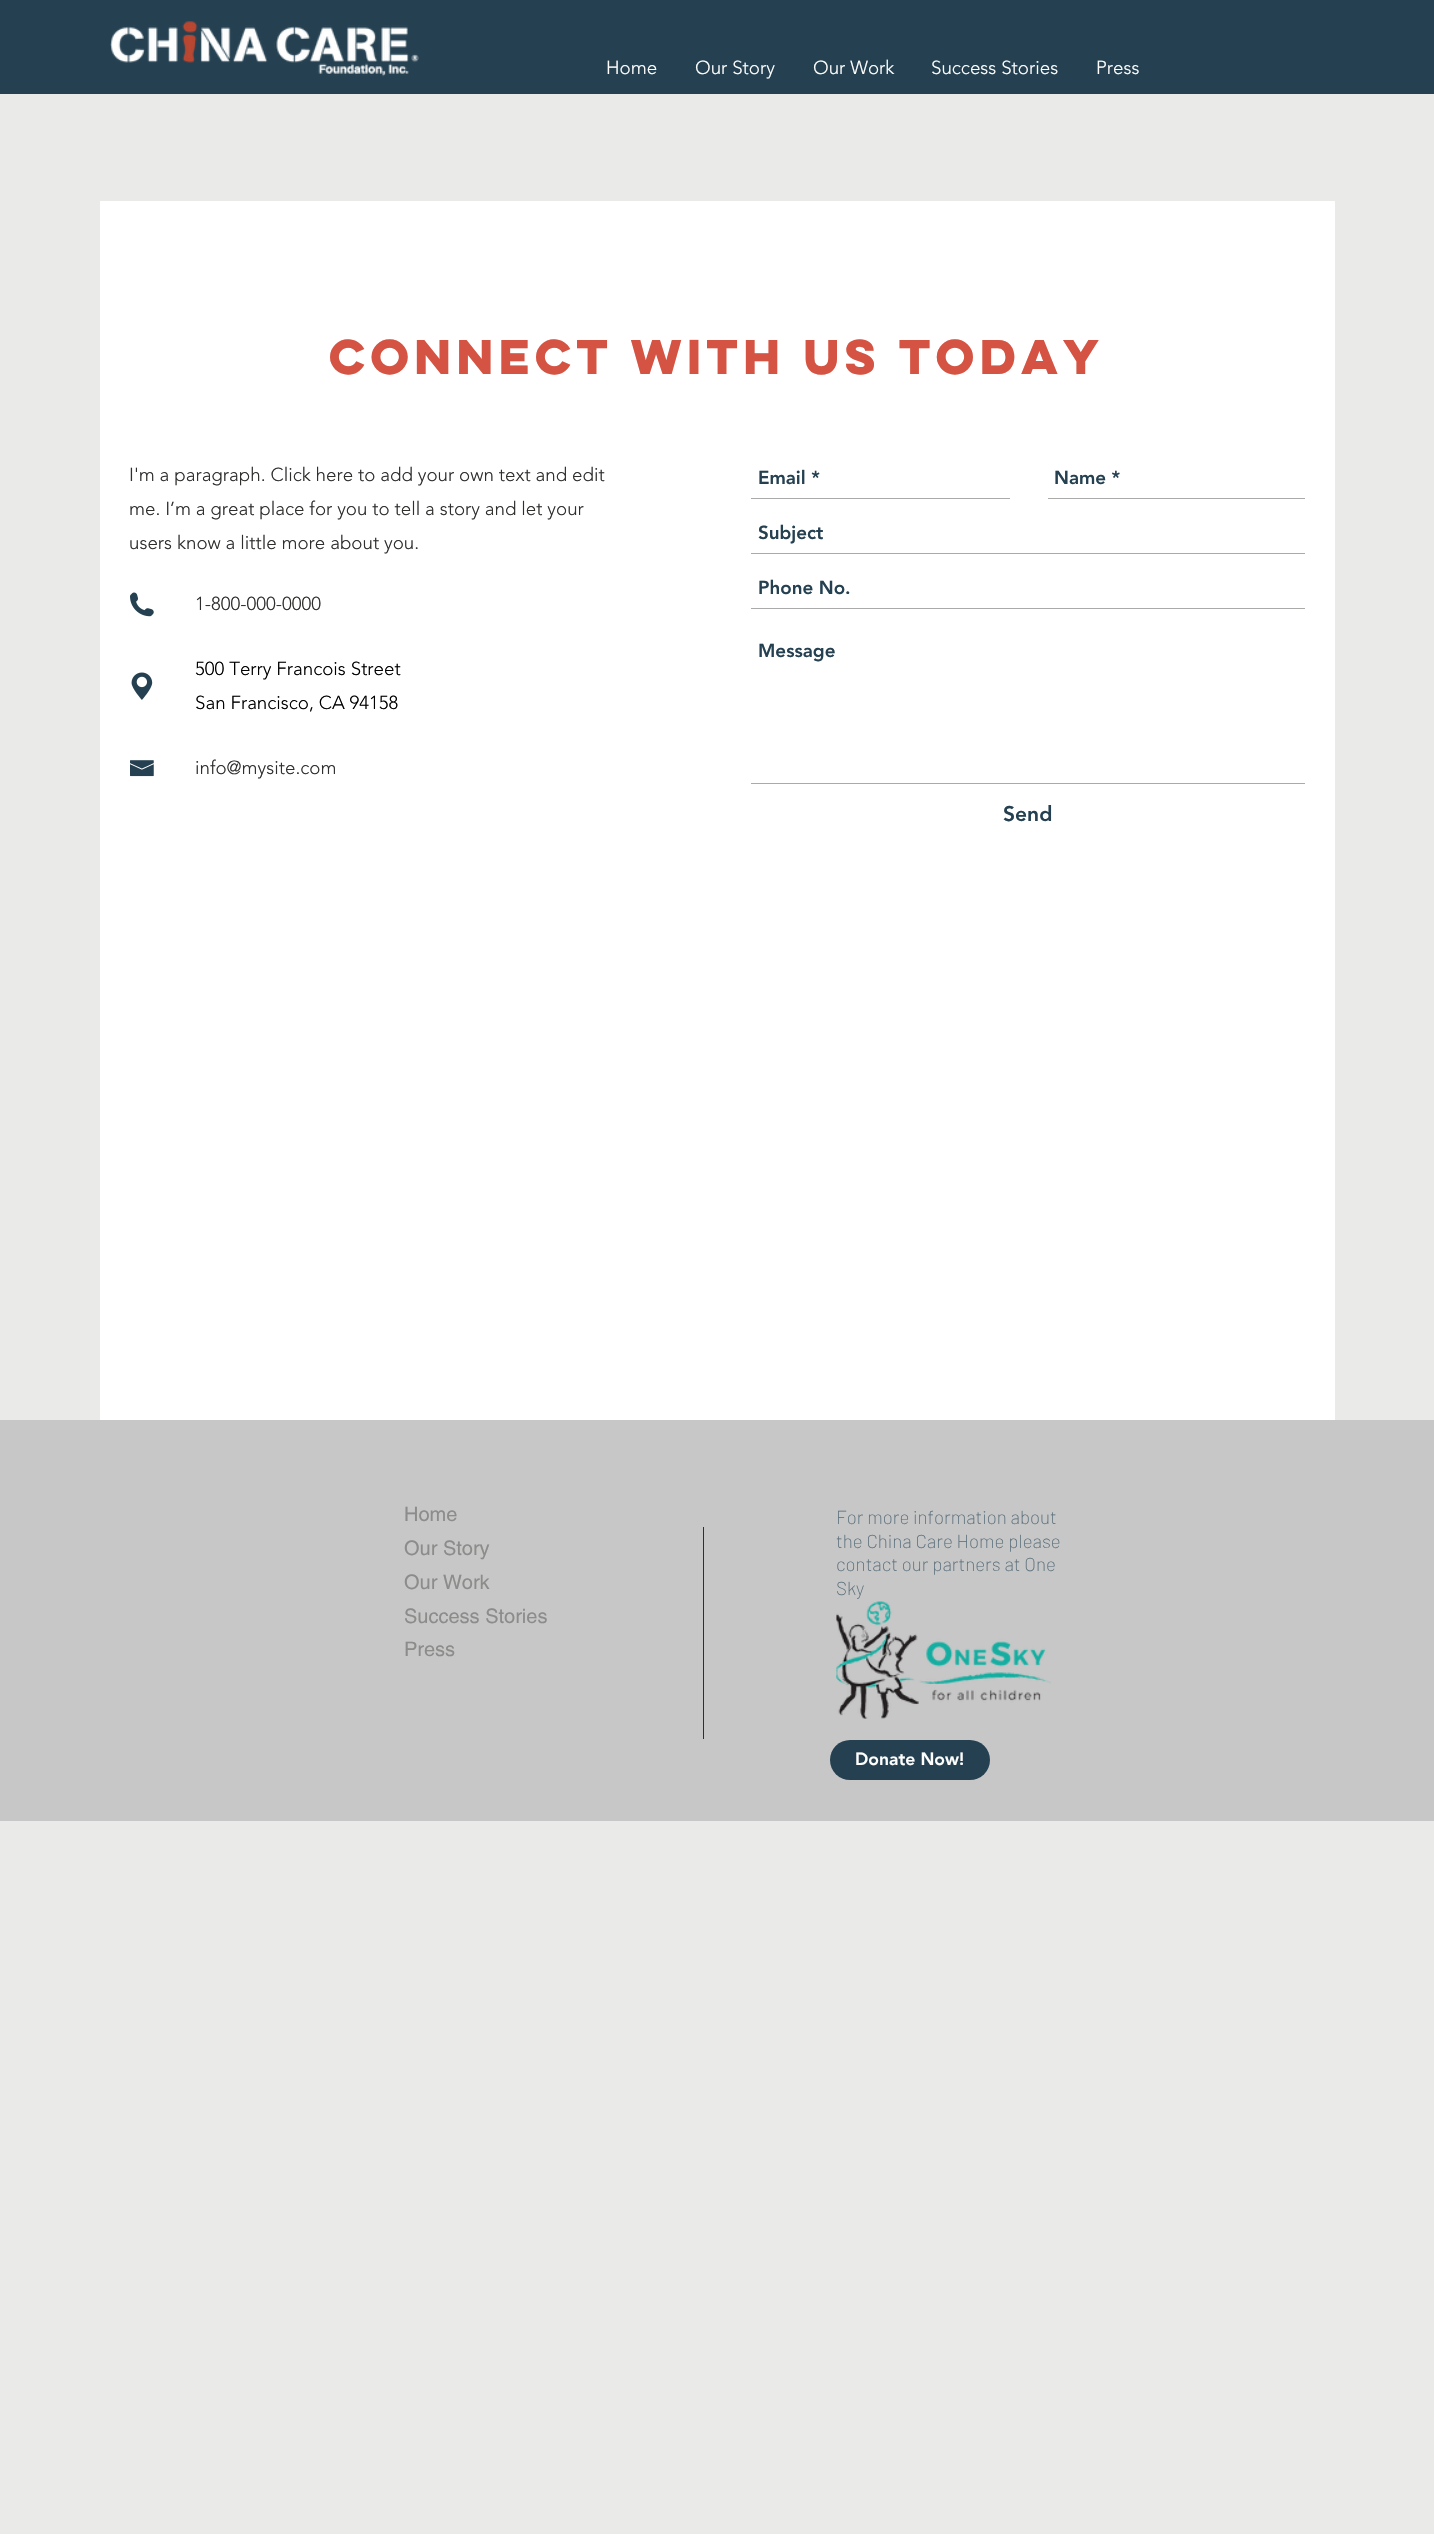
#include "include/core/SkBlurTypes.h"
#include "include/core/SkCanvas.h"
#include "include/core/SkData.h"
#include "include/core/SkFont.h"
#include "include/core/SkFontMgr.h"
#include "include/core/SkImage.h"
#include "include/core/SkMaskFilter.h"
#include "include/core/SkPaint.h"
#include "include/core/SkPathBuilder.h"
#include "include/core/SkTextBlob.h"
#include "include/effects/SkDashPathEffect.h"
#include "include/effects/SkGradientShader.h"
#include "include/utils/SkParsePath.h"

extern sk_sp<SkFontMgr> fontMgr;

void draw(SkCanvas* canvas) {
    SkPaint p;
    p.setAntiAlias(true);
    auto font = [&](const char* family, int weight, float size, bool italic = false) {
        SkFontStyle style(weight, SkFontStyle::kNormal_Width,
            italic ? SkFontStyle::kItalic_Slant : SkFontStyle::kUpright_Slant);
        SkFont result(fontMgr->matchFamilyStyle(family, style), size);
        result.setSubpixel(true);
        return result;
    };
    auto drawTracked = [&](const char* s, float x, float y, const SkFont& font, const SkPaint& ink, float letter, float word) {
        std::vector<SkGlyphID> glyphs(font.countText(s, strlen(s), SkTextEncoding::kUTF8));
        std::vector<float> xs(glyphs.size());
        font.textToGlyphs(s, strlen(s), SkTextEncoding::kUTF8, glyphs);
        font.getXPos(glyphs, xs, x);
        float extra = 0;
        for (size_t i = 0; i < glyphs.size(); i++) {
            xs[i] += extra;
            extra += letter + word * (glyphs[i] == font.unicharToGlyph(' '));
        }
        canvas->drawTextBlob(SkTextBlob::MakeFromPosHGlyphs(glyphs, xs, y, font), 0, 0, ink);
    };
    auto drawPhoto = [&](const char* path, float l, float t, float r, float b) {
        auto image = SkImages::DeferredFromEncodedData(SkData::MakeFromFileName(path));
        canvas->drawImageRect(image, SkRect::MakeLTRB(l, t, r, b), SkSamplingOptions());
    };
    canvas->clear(0xFFEAEAE8);
    p.setColor(0xFF254151);
    canvas->drawRect(SkRect::MakeLTRB(0, 0, 1434, 94), p);
    drawPhoto("media/1.png", 110, 21, 419, 77);
    auto font1 = font("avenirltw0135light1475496", 300, 18.75f);
    p.setColor(0xFFFFFFFF);
    {
        const struct { const char* s; float x, y; } items[] = {
            {"Home", 606, 74},
            {"Our Story", 695, 74},
            {"Our Work", 813, 74},
            {"Success Stories", 931, 74},
            {"Press", 1096, 74},
        };
        for (auto [s, x, y] : items) {
            canvas->drawString(s, x, y, font1, p);
        }
    }
    canvas->drawRect(SkRect::MakeLTRB(100, 201, 1335, 1420), p);
    auto font2 = font("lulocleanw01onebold", 700, 43.75f);
    p.setColor(0xFFD55342);
    drawTracked("CONNECT WITH US TODAY", 329, 374, font2, p, -4.4f, 0);
    p.setColor(0xFF2F2F2E);
    {
        const struct { const char* s; float x, y; } items[] = {
            {"I'm a paragraph. Click here to add your own text and edit", 129, 481},
            {"me. I’m a great place for you to tell a story and let your", 129, 515},
            {"users know a little more about you.", 129, 549},
        };
        for (auto [s, x, y] : items) {
            canvas->drawString(s, x, y, font1, p);
        }
    }
    p.setColor(0xFFAAAAA9);
    canvas->drawRect(SkRect::MakeLTRB(751, 498, 1010, 499), p);
    auto font3 = font("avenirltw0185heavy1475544", 900, 18.75f);
    p.setColor(0xFF254151);
    canvas->drawString("Email *", 758, 484, font3, p);
    p.setColor(0xFFAAAAA9);
    canvas->drawRect(SkRect::MakeLTRB(1048, 498, 1305, 499), p);
    p.setColor(0xFF254151);
    canvas->drawString("Name *", 1054, 484, font3, p);
    p.setColor(0xFFAAAAA9);
    canvas->drawRect(SkRect::MakeLTRB(751, 553, 1305, 554), p);
    p.setColor(0xFF254151);
    canvas->drawString("Subject", 758, 539, font3, p);
    p.setColor(0xFFAAAAA9);
    canvas->drawRect(SkRect::MakeLTRB(751, 608, 1305, 609), p);
    p.setColor(0xFF254151);
    canvas->drawString("Phone No.", 758, 594, font3, p);
    p.setColor(0xFFAAAAA9);
    canvas->drawRect(SkRect::MakeLTRB(751, 783, 1305, 784), p);
    p.setColor(0xFF254151);
    canvas->drawString("Message", 758, 657, font3, p);
    auto font4 = font("avenirltw0185heavy1475544", 900, 21);
    canvas->drawString("Send", 1003, 821, font4, p);
    drawPhoto("media/2.png", 130, 592, 154, 617);
    p.setColor(0xFF2F2F2E);
    canvas->drawString("1-800-000-0000", 195, 610, font1, p);
    drawPhoto("media/3.png", 131, 672, 153, 700);
    p.setColor(0xFF000000);
    canvas->drawString("500 Terry Francois Street", 195, 675, font1, p);
    canvas->drawString("San Francisco, CA 94158", 195, 709, font1, p);
    drawPhoto("media/4.png", 130, 760, 154, 777);
    p.setColor(0xFF2F2F2E);
    canvas->drawString("info@mysite.com", 195, 774, font1, p);
    p.setColor(0xFFC7C7C7);
    canvas->drawRect(SkRect::MakeLTRB(0, 1420, 1434, 1821), p);
    auto font5 = font("helvetica", 400, 20);
    p.setColor(0xFF8C8C8B);
    {
        const struct { const char* s; float x, y; } items[] = {
            {"Home", 404, 1521},
            {"Our Story", 404, 1555},
            {"Our Work", 404, 1589},
            {"Success Stories", 404, 1623},
            {"Press", 404, 1656},
        };
        for (auto [s, x, y] : items) {
            canvas->drawString(s, x, y, font5, p);
        }
    }
    p.setColor(0xFF2F2F2E);
    canvas->drawRect(SkRect::MakeLTRB(703, 1527, 704, 1739), p);
    auto font6 = font("Barlow", 200, 18.75f);
    p.setColor(0xFF5B707C);
    {
        const struct { const char* s; float x, y; } items[] = {
            {"For more information about", 836, 1524},
            {"the China Care Home please", 836, 1548},
            {"contact our partners at One", 836, 1571},
            {"Sky", 836, 1595},
        };
        for (auto [s, x, y] : items) {
            canvas->drawString(s, x, y, font6, p);
        }
    }
    drawPhoto("media/5.png", 836, 1601, 1051, 1719);
    p.setColor(0xFF254151);
    canvas->drawRoundRect(SkRect::MakeLTRB(830, 1740, 990, 1780), 20, 20, p);
    auto font7 = font("avenirltw0185heavy1475544", 900, 17.5f);
    p.setColor(0xFFFFFFFF);
    canvas->drawString("Donate Now!", 855, 1765, font7, p);
}
